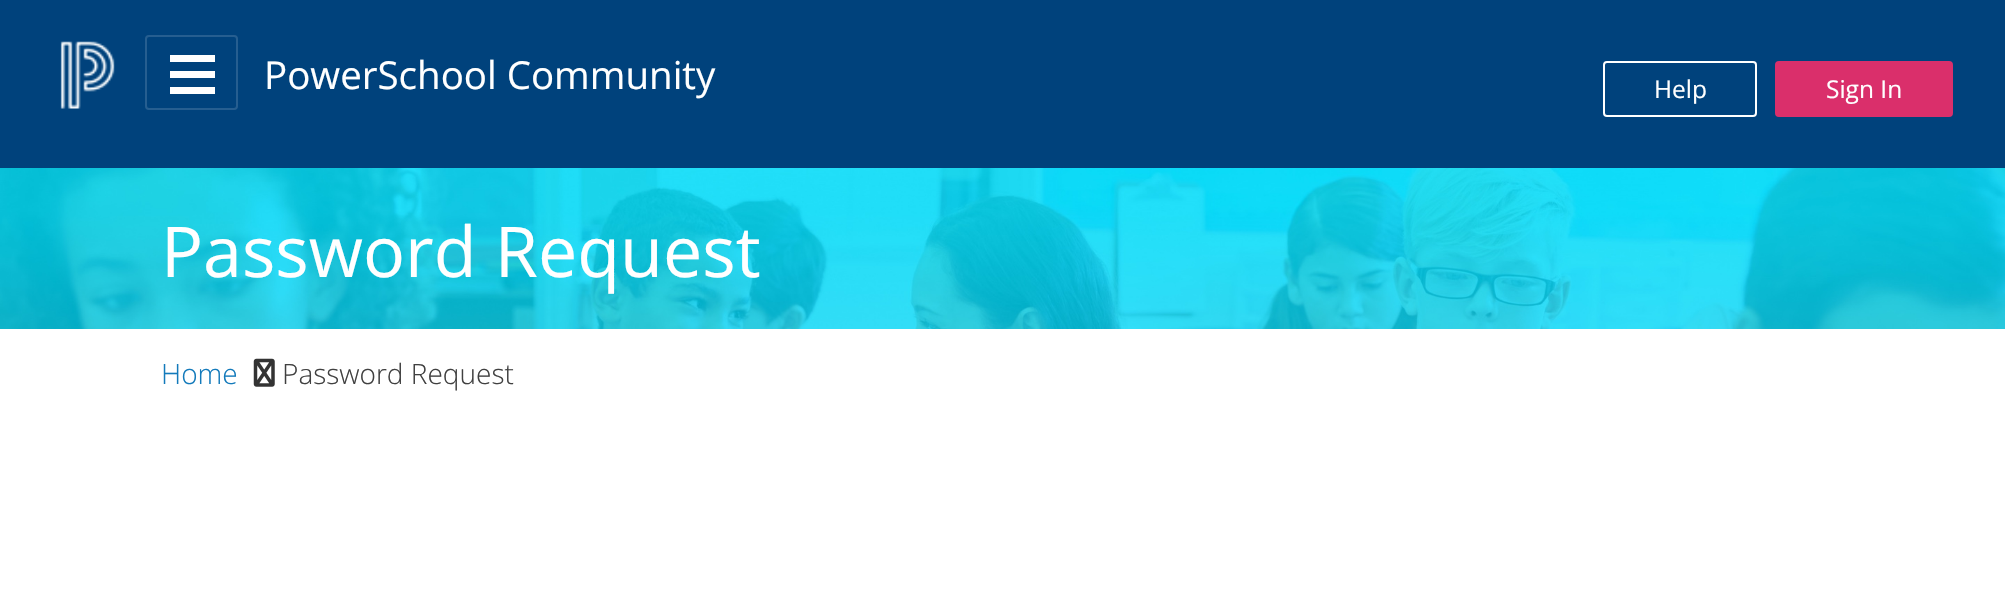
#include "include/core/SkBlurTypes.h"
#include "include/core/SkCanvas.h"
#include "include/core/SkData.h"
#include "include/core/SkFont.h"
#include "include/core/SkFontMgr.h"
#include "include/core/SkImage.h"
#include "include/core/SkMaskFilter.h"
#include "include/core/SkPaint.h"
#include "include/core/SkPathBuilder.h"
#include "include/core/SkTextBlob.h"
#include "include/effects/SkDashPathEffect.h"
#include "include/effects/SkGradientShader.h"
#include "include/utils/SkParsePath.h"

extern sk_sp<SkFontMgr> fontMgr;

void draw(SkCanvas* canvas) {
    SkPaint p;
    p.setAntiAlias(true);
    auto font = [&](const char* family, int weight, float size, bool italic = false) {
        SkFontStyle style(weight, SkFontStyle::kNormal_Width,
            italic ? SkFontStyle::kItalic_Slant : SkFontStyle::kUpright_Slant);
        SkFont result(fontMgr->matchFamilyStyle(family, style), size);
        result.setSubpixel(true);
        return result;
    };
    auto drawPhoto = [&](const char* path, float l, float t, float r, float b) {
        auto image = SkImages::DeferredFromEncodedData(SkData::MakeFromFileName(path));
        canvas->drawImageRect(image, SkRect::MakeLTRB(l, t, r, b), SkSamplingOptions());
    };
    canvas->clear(0xFFFFFFFF);
    p.setColor(0xFF00427C);
    canvas->drawRect(SkRect::MakeLTRB(0, 0, 2005, 168), p);
    drawPhoto("media/1.png", 60, 41, 115, 109);
    p.setStyle(SkPaint::kStroke_Style);
    p.setStrokeWidth(2);
    p.setColor(0xFF265E90);
    canvas->drawRoundRect(SkRect::MakeLTRB(146, 36, 237, 109), 3, 3, p);
    p.setStyle(SkPaint::kFill_Style);
    p.setColor(0xFFFFFFFF);
    canvas->drawPath(SkPathBuilder(SkPathFillType::kEvenOdd).moveTo(170, 55).lineTo(215, 55).lineTo(215, 62).lineTo(170, 62).close().moveTo(170, 71).lineTo(215, 71).lineTo(215, 78).lineTo(170, 78).close().moveTo(170, 87).lineTo(215, 87).lineTo(215, 94).lineTo(170, 94).close().detach(), p);
    auto font1 = font("Open Sans", 400, 38.5f);
    canvas->drawString("PowerSchool Community", 264, 89, font1, p);
    p.setStyle(SkPaint::kStroke_Style);
    canvas->drawRoundRect(SkRect::MakeLTRB(1604, 62, 1756, 116), 3, 3, p);
    auto font2 = font("Open Sans", 400, 24.5f);
    p.setStyle(SkPaint::kFill_Style);
    canvas->drawString("Help", 1654, 98, font2, p);
    p.setColor(0xFFDA2F6B);
    canvas->drawRoundRect(SkRect::MakeLTRB(1776, 62, 1952, 116), 3, 3, p);
    p.setStyle(SkPaint::kStroke_Style);
    canvas->drawRoundRect(SkRect::MakeLTRB(1776, 62, 1952, 116), 3, 3, p);
    p.setStyle(SkPaint::kFill_Style);
    p.setColor(0xFFFFFFFF);
    canvas->drawString("Sign In", 1826, 98, font2, p);
    drawPhoto("media/2.png", 0, 168, 2005, 329);
    auto font3 = font("Open Sans", 400, 70);
    canvas->drawString("Password Request", 161, 277, font3, p);
    auto font4 = font("Open Sans", 300, 28);
    p.setColor(0xFF137ABB);
    canvas->drawString("Home", 161, 384, font4, p);
    drawPhoto("media/3.png", 253, 358, 275, 387);
    p.setColor(0xFF404040);
    canvas->drawString("Password Request", 282, 384, font4, p);
}
